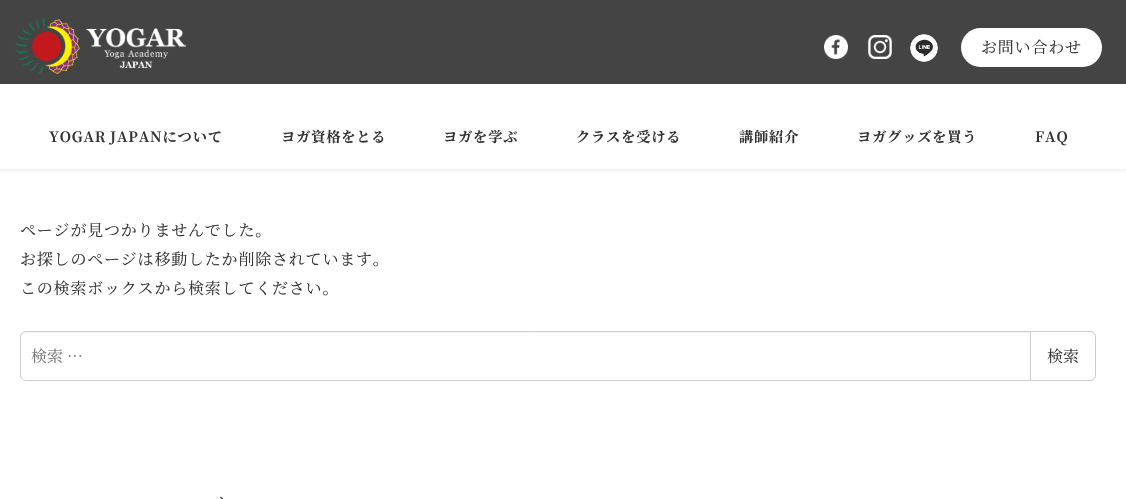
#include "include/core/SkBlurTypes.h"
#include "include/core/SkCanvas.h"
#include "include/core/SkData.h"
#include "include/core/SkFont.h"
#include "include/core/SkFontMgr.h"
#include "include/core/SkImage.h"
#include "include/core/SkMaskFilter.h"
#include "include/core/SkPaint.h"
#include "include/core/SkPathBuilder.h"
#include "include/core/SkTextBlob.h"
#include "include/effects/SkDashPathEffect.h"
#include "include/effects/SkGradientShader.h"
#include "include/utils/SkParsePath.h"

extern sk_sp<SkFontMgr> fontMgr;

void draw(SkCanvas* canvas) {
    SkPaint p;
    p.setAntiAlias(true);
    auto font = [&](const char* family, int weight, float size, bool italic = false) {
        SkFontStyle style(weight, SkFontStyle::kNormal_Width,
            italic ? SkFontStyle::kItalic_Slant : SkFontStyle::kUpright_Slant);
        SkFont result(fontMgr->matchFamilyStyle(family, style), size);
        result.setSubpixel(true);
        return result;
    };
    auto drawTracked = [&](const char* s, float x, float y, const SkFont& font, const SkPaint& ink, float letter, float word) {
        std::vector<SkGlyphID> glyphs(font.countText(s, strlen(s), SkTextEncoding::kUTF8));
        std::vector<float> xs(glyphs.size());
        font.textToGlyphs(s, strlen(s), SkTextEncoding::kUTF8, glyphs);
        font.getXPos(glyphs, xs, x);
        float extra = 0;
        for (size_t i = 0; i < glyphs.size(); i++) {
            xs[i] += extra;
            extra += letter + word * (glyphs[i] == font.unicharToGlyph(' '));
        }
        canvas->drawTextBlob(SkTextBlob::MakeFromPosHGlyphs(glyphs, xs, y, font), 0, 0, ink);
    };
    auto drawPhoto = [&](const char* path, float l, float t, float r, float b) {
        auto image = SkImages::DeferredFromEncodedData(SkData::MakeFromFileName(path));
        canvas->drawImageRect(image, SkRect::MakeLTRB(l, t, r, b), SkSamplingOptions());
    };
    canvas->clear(0xFFFFFFFF);
    p.setColor(0x0D000000);
    p.setMaskFilter(SkMaskFilter::MakeBlur(kNormal_SkBlurStyle, 1));
    canvas->drawRect(SkRect::MakeLTRB(-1, 0, 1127, 171), p);
    p.setMaskFilter(nullptr);
    p.setColor(0xFF444444);
    canvas->drawRect(SkRect::MakeLTRB(0, 0, 1126, 84), p);
    p.setColor(0xFFFFFFFF);
    canvas->drawRect(SkRect::MakeLTRB(0, 84, 1126, 169), p);
    drawPhoto("media/1.png", 15, 17, 186, 75);
    drawPhoto("media/2.png", 824, 35, 848, 59);
    drawPhoto("media/3.png", 868, 35, 892, 59);
    drawPhoto("media/4.png", 910, 34, 938, 62);
    canvas->drawRoundRect(SkRect::MakeLTRB(961, 28, 1102, 67), 19.5f, 19.5f, p);
    auto font1 = font("Noto Serif JP", 400, 16);
    p.setColor(0xFF333333);
    drawTracked("お問い合わせ", 981, 53, font1, p, 0.8f, 0);
    auto font2 = font("Noto Serif JP", 700, 14.25f);
    {
        const struct { const char* s; float x, y; } items[] = {
            {"YOGAR", 49, 142},
            {"JAPANについて", 110, 142},
            {"ヨガ資格をとる", 281, 142},
            {"ヨガを学ぶ", 443, 142},
            {"クラスを受ける", 576, 142},
            {"講師紹介", 739, 142},
            {"ヨガグッズを買う", 857, 142},
            {"FAQ", 1035, 142},
        };
        for (auto [s, x, y] : items) {
            drawTracked(s, x, y, font2, p, 0.8f, 0);
        }
    }
    {
        const struct { const char* s; float x, y; } items[] = {
            {"ページが見つかりませんでした。", 20, 236},
            {"お探しのページは移動したか削除されています。", 20, 265},
            {"この検索ボックスから検索してください。", 20, 294},
        };
        for (auto [s, x, y] : items) {
            drawTracked(s, x, y, font1, p, 0.8f, 0);
        }
    }
    p.setStyle(SkPaint::kStroke_Style);
    p.setStrokeWidth(1);
    p.setColor(0xFFCCCCCC);
    canvas->drawPath(SkPathBuilder().moveTo(1030.5f, 331.5f).lineTo(1090, 331.5f).cubicTo(1093, 331.5f, 1095.5f, 334, 1095.5f, 337).lineTo(1095.5f, 375).cubicTo(1095.5f, 378, 1093, 380.5f, 1090, 380.5f).lineTo(1030.5f, 380.5f).close().detach(), p);
    p.setStyle(SkPaint::kFill_Style);
    p.setColor(0xFFFFFFFF);
    canvas->drawPath(SkPathBuilder().moveTo(26, 331).lineTo(1031, 331).lineTo(1031, 381).lineTo(26, 381).cubicTo(22.5f, 381, 20, 378.5f, 20, 375).lineTo(20, 337).cubicTo(20, 333.5f, 22.5f, 331, 26, 331).close().detach(), p);
    p.setColor(0xFFF6F6F6);
    canvas->drawPath(SkPathBuilder().moveTo(26, 333).lineTo(1030, 333).lineTo(1030, 332).lineTo(26, 332).cubicTo(23, 332, 21, 335, 21, 338).cubicTo(21, 335, 23, 333, 26, 333).close().detach(), p);
    p.setStyle(SkPaint::kStroke_Style);
    p.setColor(0xFFCCCCCC);
    canvas->drawPath(SkPathBuilder().moveTo(26, 331.5f).lineTo(1030.5f, 331.5f).lineTo(1030.5f, 380.5f).lineTo(26, 380.5f).cubicTo(23, 380.5f, 20.5f, 378, 20.5f, 375).lineTo(20.5f, 337).cubicTo(20.5f, 334, 23, 331.5f, 26, 331.5f).close().detach(), p);
    p.setStyle(SkPaint::kFill_Style);
    p.setColor(0xFF757575);
    canvas->drawString("検索", 31, 362, font1, p);
    canvas->drawString("…", 67, 362, font1, p);
    p.setColor(0xFF333333);
    canvas->drawString("検索", 1047, 362, font1, p);
    canvas->drawPath(SkPathBuilder().moveTo(221, 496.5f).lineTo(224.5f, 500.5f).lineTo(223.5f, 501).lineTo(220, 497.5f).close().detach(), p);
}
